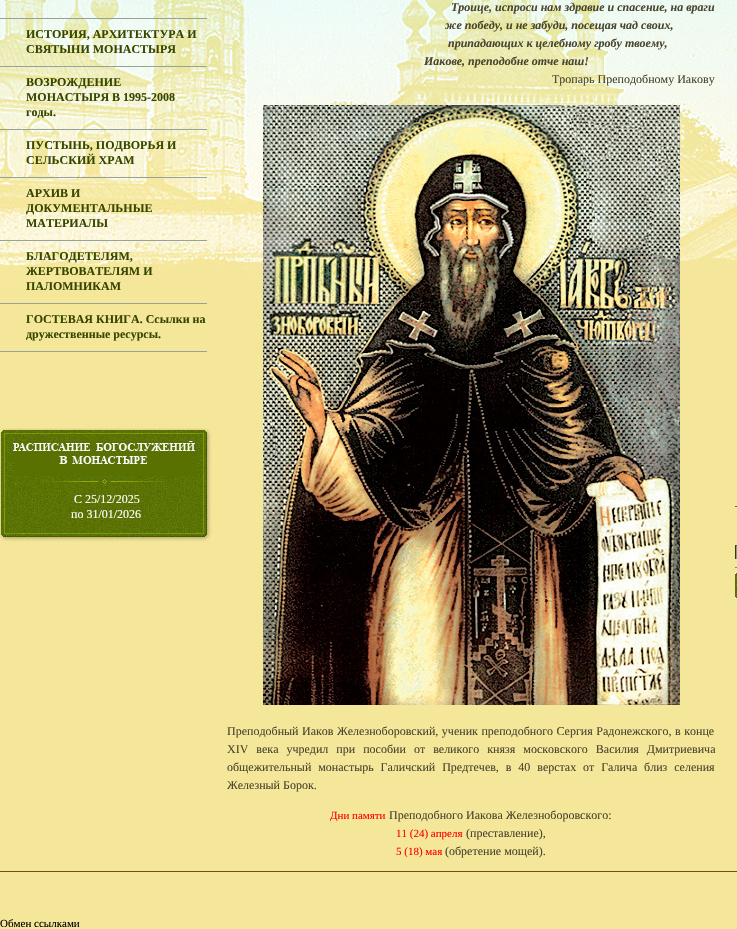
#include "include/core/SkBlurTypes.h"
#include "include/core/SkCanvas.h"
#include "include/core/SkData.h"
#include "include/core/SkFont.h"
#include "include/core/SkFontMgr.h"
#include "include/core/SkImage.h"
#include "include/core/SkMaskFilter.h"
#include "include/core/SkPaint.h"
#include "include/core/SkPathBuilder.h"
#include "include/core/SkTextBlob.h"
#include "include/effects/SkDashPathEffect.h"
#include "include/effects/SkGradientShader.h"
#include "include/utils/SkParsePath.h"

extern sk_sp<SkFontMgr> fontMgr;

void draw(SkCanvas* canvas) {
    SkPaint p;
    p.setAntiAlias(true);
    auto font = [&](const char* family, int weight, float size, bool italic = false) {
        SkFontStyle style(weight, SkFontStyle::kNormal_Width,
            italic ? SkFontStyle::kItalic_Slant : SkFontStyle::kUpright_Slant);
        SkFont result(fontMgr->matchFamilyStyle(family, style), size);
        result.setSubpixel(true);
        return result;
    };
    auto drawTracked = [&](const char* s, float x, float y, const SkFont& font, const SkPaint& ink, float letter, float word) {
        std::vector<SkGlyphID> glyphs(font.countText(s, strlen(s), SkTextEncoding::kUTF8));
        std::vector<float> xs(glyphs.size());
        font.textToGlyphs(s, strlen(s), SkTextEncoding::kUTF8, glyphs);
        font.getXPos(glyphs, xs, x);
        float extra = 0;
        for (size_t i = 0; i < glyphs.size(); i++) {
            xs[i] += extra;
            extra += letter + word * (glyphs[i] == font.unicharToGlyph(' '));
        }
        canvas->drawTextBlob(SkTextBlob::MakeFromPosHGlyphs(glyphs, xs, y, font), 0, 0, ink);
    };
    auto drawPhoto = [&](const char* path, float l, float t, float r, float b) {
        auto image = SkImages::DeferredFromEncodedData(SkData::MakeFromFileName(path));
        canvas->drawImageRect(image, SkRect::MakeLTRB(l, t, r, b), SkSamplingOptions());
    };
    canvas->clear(0xFFF5E79A);
    drawPhoto("media/1.png", 0, 0, 737, 287);
    p.setColor(0xFF95A39B);
    canvas->drawRect(SkRect::MakeLTRB(0, 18, 207, 19), p);
    auto font1 = font("Liberation Serif", 700, 12);
    p.setColor(0xFF374700);
    canvas->drawString("ИСТОРИЯ, АРХИТЕКТУРА И", 26, 38, font1, p);
    canvas->drawString("СВЯТЫНИ МОНАСТЫРЯ", 26, 53, font1, p);
    p.setColor(0xFF95A39B);
    canvas->drawRect(SkRect::MakeLTRB(0, 66, 207, 67), p);
    p.setColor(0xFF374700);
    {
        const struct { const char* s; float x, y; } items[] = {
            {"ВОЗРОЖДЕНИЕ", 26, 86},
            {"МОНАСТЫРЯ В 1995-2008", 26, 101},
            {"годы.", 26, 116},
        };
        for (auto [s, x, y] : items) {
            canvas->drawString(s, x, y, font1, p);
        }
    }
    p.setColor(0xFF95A39B);
    canvas->drawRect(SkRect::MakeLTRB(0, 129, 207, 130), p);
    p.setColor(0xFF374700);
    canvas->drawString("ПУСТЫНЬ, ПОДВОРЬЯ И", 26, 149, font1, p);
    canvas->drawString("СЕЛЬСКИЙ ХРАМ", 26, 164, font1, p);
    p.setColor(0xFF95A39B);
    canvas->drawRect(SkRect::MakeLTRB(0, 177, 207, 178), p);
    p.setColor(0xFF374700);
    {
        const struct { const char* s; float x, y; } items[] = {
            {"АРХИВ И", 26, 197},
            {"ДОКУМЕНТАЛЬНЫЕ", 26, 212},
            {"МАТЕРИАЛЫ", 26, 227},
        };
        for (auto [s, x, y] : items) {
            canvas->drawString(s, x, y, font1, p);
        }
    }
    p.setColor(0xFF95A39B);
    canvas->drawRect(SkRect::MakeLTRB(0, 240, 207, 241), p);
    p.setColor(0xFF374700);
    {
        const struct { const char* s; float x, y; } items[] = {
            {"БЛАГОДЕТЕЛЯМ,", 26, 260},
            {"ЖЕРТВОВАТЕЛЯМ И", 26, 275},
            {"ПАЛОМНИКАМ", 26, 290},
        };
        for (auto [s, x, y] : items) {
            canvas->drawString(s, x, y, font1, p);
        }
    }
    p.setColor(0xFF95A39B);
    canvas->drawRect(SkRect::MakeLTRB(0, 303, 207, 304), p);
    p.setColor(0xFF374700);
    canvas->drawString("ГОСТЕВАЯ КНИГА. Ссылки на", 26, 323, font1, p);
    canvas->drawString("дружественные ресурсы.", 26, 338, font1, p);
    p.setColor(0xFF95A39B);
    canvas->drawRect(SkRect::MakeLTRB(0, 351, 207, 352), p);
    drawPhoto("media/2.png", 0, 428, 213, 542);
    auto font2 = font("Liberation Serif", 400, 12);
    p.setColor(0xFFFFFFFF);
    canvas->drawString("С 25/12/2025", 74, 503, font2, p);
    canvas->drawString("по 31/01/2026", 71, 518, font2, p);
    auto font3 = font("Liberation Serif", 700, 12, true);
    p.setColor(0xFF49452E);
    {
        const struct { const char* s; float x, y; } items[] = {
            {"Троице, испроси нам здравие и спасение, на враги", 451, 11},
            {"же победу, и не забуди, посещая чад своих,", 445, 29},
            {"припадающих к целебному гробу твоему,", 448, 47},
            {"Иакове, преподобне отче наш!", 424, 65},
        };
        for (auto [s, x, y] : items) {
            canvas->drawString(s, x, y, font3, p);
        }
    }
    canvas->drawString("Тропарь Преподобному Иакову", 552, 83, font2, p);
    drawPhoto("media/3.png", 263, 105, 680, 705);
    drawTracked("Преподобный Иаков Железноборовский, ученик преподобного Сергия Радонежского, в конце", 227, 735, font2, p, 0, 0.5f);
    drawTracked("XIV века учредил при пособии от великого князя московского Василия Дмитриевича", 227, 753, font2, p, 0, 5);
    drawTracked("общежительный монастырь Галичский Предтечев, в 40 верстах от Галича близ селения", 227, 771, font2, p, 0, 3.9f);
    canvas->drawString("Железный Борок.", 227, 789, font2, p);
    auto font4 = font("Liberation Serif", 400, 11);
    p.setColor(0xFFFF0000);
    canvas->drawString("Дни памяти", 330, 819, font4, p);
    p.setColor(0xFF49452E);
    canvas->drawString("Преподобного Иакова Железноборовского:", 389, 819, font2, p);
    p.setColor(0xFFFF0000);
    canvas->drawString("11 (24) апреля", 396, 837, font4, p);
    p.setColor(0xFF49452E);
    canvas->drawString("(преставление),", 466, 837, font2, p);
    p.setColor(0xFFFF0000);
    canvas->drawString("5 (18) мая", 396, 855, font4, p);
    p.setColor(0xFF49452E);
    canvas->drawString("(обретение мощей).", 445, 855, font2, p);
    p.setColor(0xFF5A7302);
    canvas->drawRect(SkRect::MakeLTRB(735, 506, 737, 507), p);
    drawPhoto("media/4.png", 735, 545, 737, 559);
    p.setColor(0xFFA77E47);
    canvas->drawRect(SkRect::MakeLTRB(735, 567, 737, 568), p);
    drawPhoto("media/5.png", 735, 572, 737, 599);
    p.setColor(0xFF7C4C0C);
    canvas->drawRect(SkRect::MakeLTRB(0, 871, 737, 872), p);
    p.setColor(0xFF000000);
    canvas->drawString("Обмен ссылками", 0, 927, font4, p);
}
